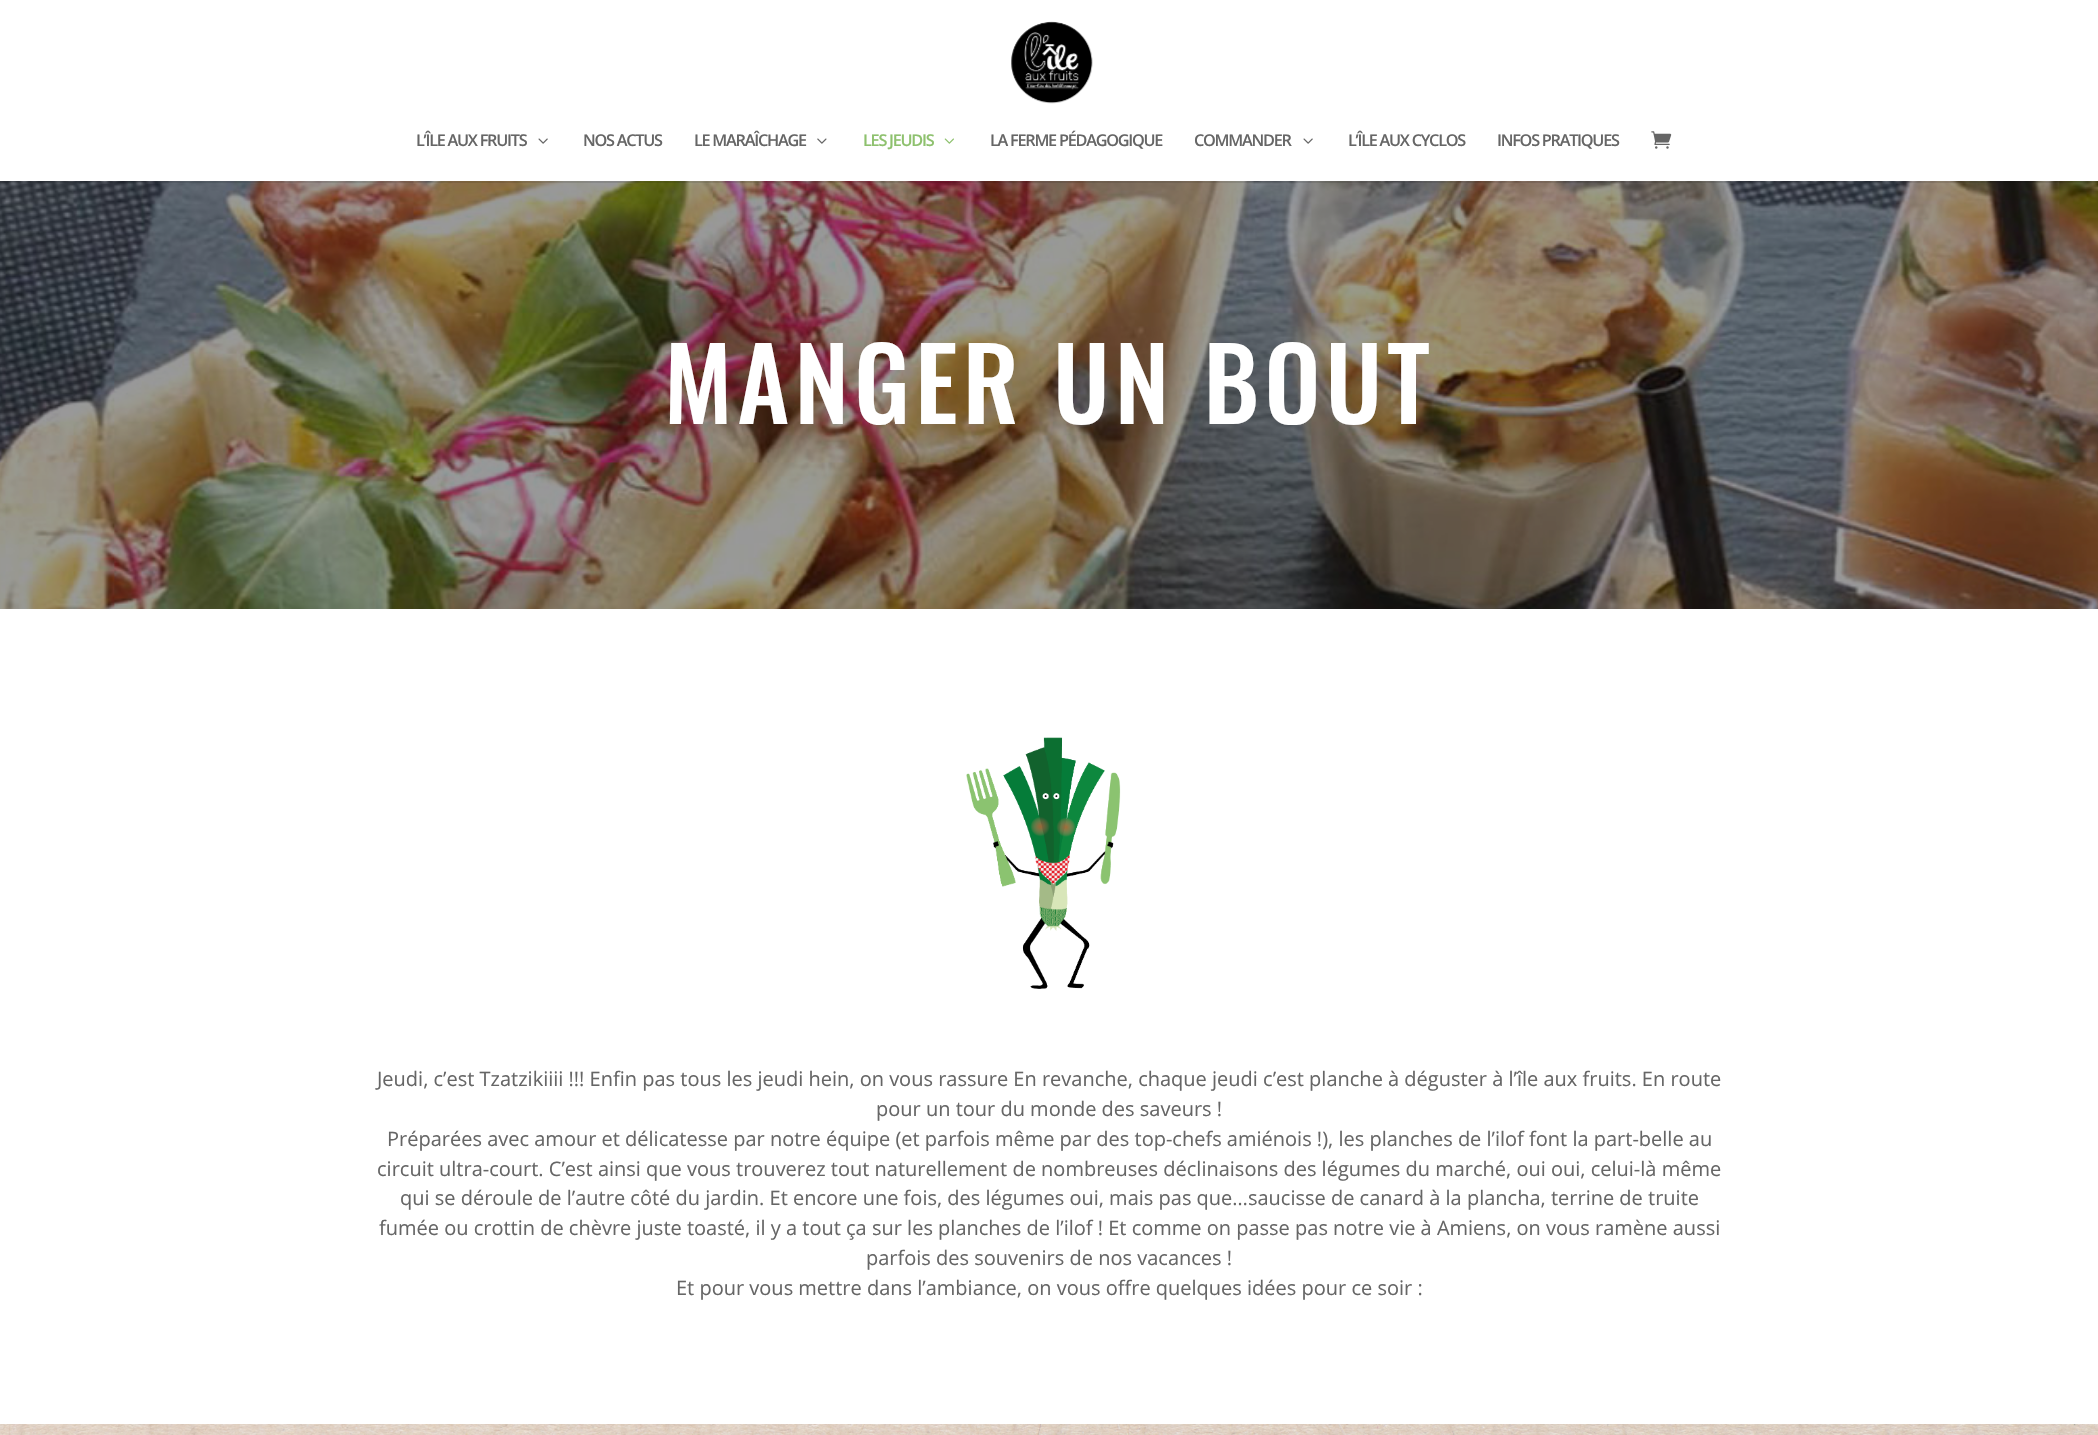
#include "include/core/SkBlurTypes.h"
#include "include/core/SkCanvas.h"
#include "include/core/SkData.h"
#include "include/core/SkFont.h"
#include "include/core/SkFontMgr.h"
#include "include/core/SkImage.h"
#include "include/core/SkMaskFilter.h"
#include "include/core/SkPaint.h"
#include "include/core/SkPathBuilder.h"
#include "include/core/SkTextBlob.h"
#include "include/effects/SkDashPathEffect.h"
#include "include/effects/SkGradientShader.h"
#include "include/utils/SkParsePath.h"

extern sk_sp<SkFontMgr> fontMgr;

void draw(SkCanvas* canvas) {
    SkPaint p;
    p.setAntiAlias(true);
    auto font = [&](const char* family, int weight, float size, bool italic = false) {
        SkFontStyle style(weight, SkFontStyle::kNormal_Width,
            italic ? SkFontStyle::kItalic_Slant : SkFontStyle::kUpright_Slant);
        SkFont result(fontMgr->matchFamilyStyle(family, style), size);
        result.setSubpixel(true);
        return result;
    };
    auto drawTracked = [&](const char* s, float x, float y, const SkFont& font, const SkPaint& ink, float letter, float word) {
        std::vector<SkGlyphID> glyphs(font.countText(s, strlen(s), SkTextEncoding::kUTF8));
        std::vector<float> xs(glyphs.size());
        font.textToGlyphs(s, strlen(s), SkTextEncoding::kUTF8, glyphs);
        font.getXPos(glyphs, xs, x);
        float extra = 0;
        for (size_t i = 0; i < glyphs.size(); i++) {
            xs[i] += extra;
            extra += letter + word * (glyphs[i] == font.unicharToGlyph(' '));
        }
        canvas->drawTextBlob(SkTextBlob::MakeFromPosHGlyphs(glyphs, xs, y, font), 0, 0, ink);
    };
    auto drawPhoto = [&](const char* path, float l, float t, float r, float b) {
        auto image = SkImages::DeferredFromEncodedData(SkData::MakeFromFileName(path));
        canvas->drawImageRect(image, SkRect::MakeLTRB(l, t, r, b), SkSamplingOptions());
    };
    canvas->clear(0xFFFFFFFF);
    drawPhoto("media/6.png", 0, 181, 2098, 609);
    p.setColor(0x1A000000);
    canvas->drawPath(SkPathBuilder().moveTo(0, 181).lineTo(0, 183).lineTo(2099, 183).lineTo(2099, 1).lineTo(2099, 181).close().detach(), p);
    drawPhoto("media/1.png", 1011, 21, 1093, 104);
    auto font1 = font("Open Sans", 600, 16.25f);
    p.setColor(0xFF666666);
    drawTracked("L’ÎLE AUX FRUITS", 416, 146, font1, p, -1.25f, 0);
    drawPhoto("media/2.png", 538, 138, 548, 144);
    drawTracked("NOS ACTUS", 583, 146, font1, p, -1.25f, 0);
    drawTracked("LE MARAÎCHAGE", 694, 146, font1, p, -1.25f, 0);
    drawPhoto("media/3.png", 817, 138, 827, 144);
    p.setColor(0xFF8EC16E);
    drawTracked("LES JEUDIS", 863, 146, font1, p, -1.25f, 0);
    drawPhoto("media/4.png", 944, 138, 954, 144);
    p.setColor(0xFF666666);
    drawTracked("LA FERME PÉDAGOGIQUE", 990, 146, font1, p, -1.25f, 0);
    drawTracked("COMMANDER", 1194, 146, font1, p, -1.25f, 0);
    drawPhoto("media/2.png", 1303, 138, 1313, 144);
    drawTracked("L’ÎLE AUX CYCLOS", 1348, 146, font1, p, -1.25f, 0);
    drawTracked("INFOS PRATIQUES", 1497, 146, font1, p, -1.25f, 0);
    drawPhoto("media/5.png", 1651, 131, 1672, 149);
    auto font2 = font("Oswald", 500, 100);
    p.setColor(0xFFFFFFFF);
    drawTracked("MANGER UN BOUT", 664, 424, font2, p, 5, 0);
    drawPhoto("media/7.png", 966, 737, 1121, 989);
    auto font3 = font("Open Sans", 400, 20);
    p.setColor(0xFF666666);
    {
        const struct { const char* s; float x, y; } items[] = {
            {"Jeudi, c’est Tzatzikiiii !!! Enfin pas tous les jeudi hein, on vous rassure En revanche, chaque jeudi c’est planche à déguster à l’île aux fruits. En route", 377, 1086},
            {"pour un tour du monde des saveurs !", 876, 1116},
            {"Préparées avec amour et délicatesse par notre équipe (et parfois même par des top-chefs amiénois !), les planches de l’ilof font la part-belle au", 387, 1146},
            {"circuit ultra-court. C’est ainsi que vous trouverez tout naturellement de nombreuses déclinaisons des légumes du marché, oui oui, celui-là même", 377, 1176},
            {"qui se déroule de l’autre côté du jardin. Et encore une fois, des légumes oui, mais pas que…saucisse de canard à la plancha, terrine de truite", 400, 1205},
            {"fumée ou crottin de chèvre juste toasté, il y a tout ça sur les planches de l’ilof ! Et comme on passe pas notre vie à Amiens, on vous ramène aussi", 379, 1235},
            {"parfois des souvenirs de nos vacances !", 866, 1265},
            {"Et pour vous mettre dans l’ambiance, on vous offre quelques idées pour ce soir :", 676, 1295},
        };
        for (auto [s, x, y] : items) {
            canvas->drawString(s, x, y, font3, p);
        }
    }
    drawPhoto("media/8.png", 0, 1424, 2098, 1435);
}
